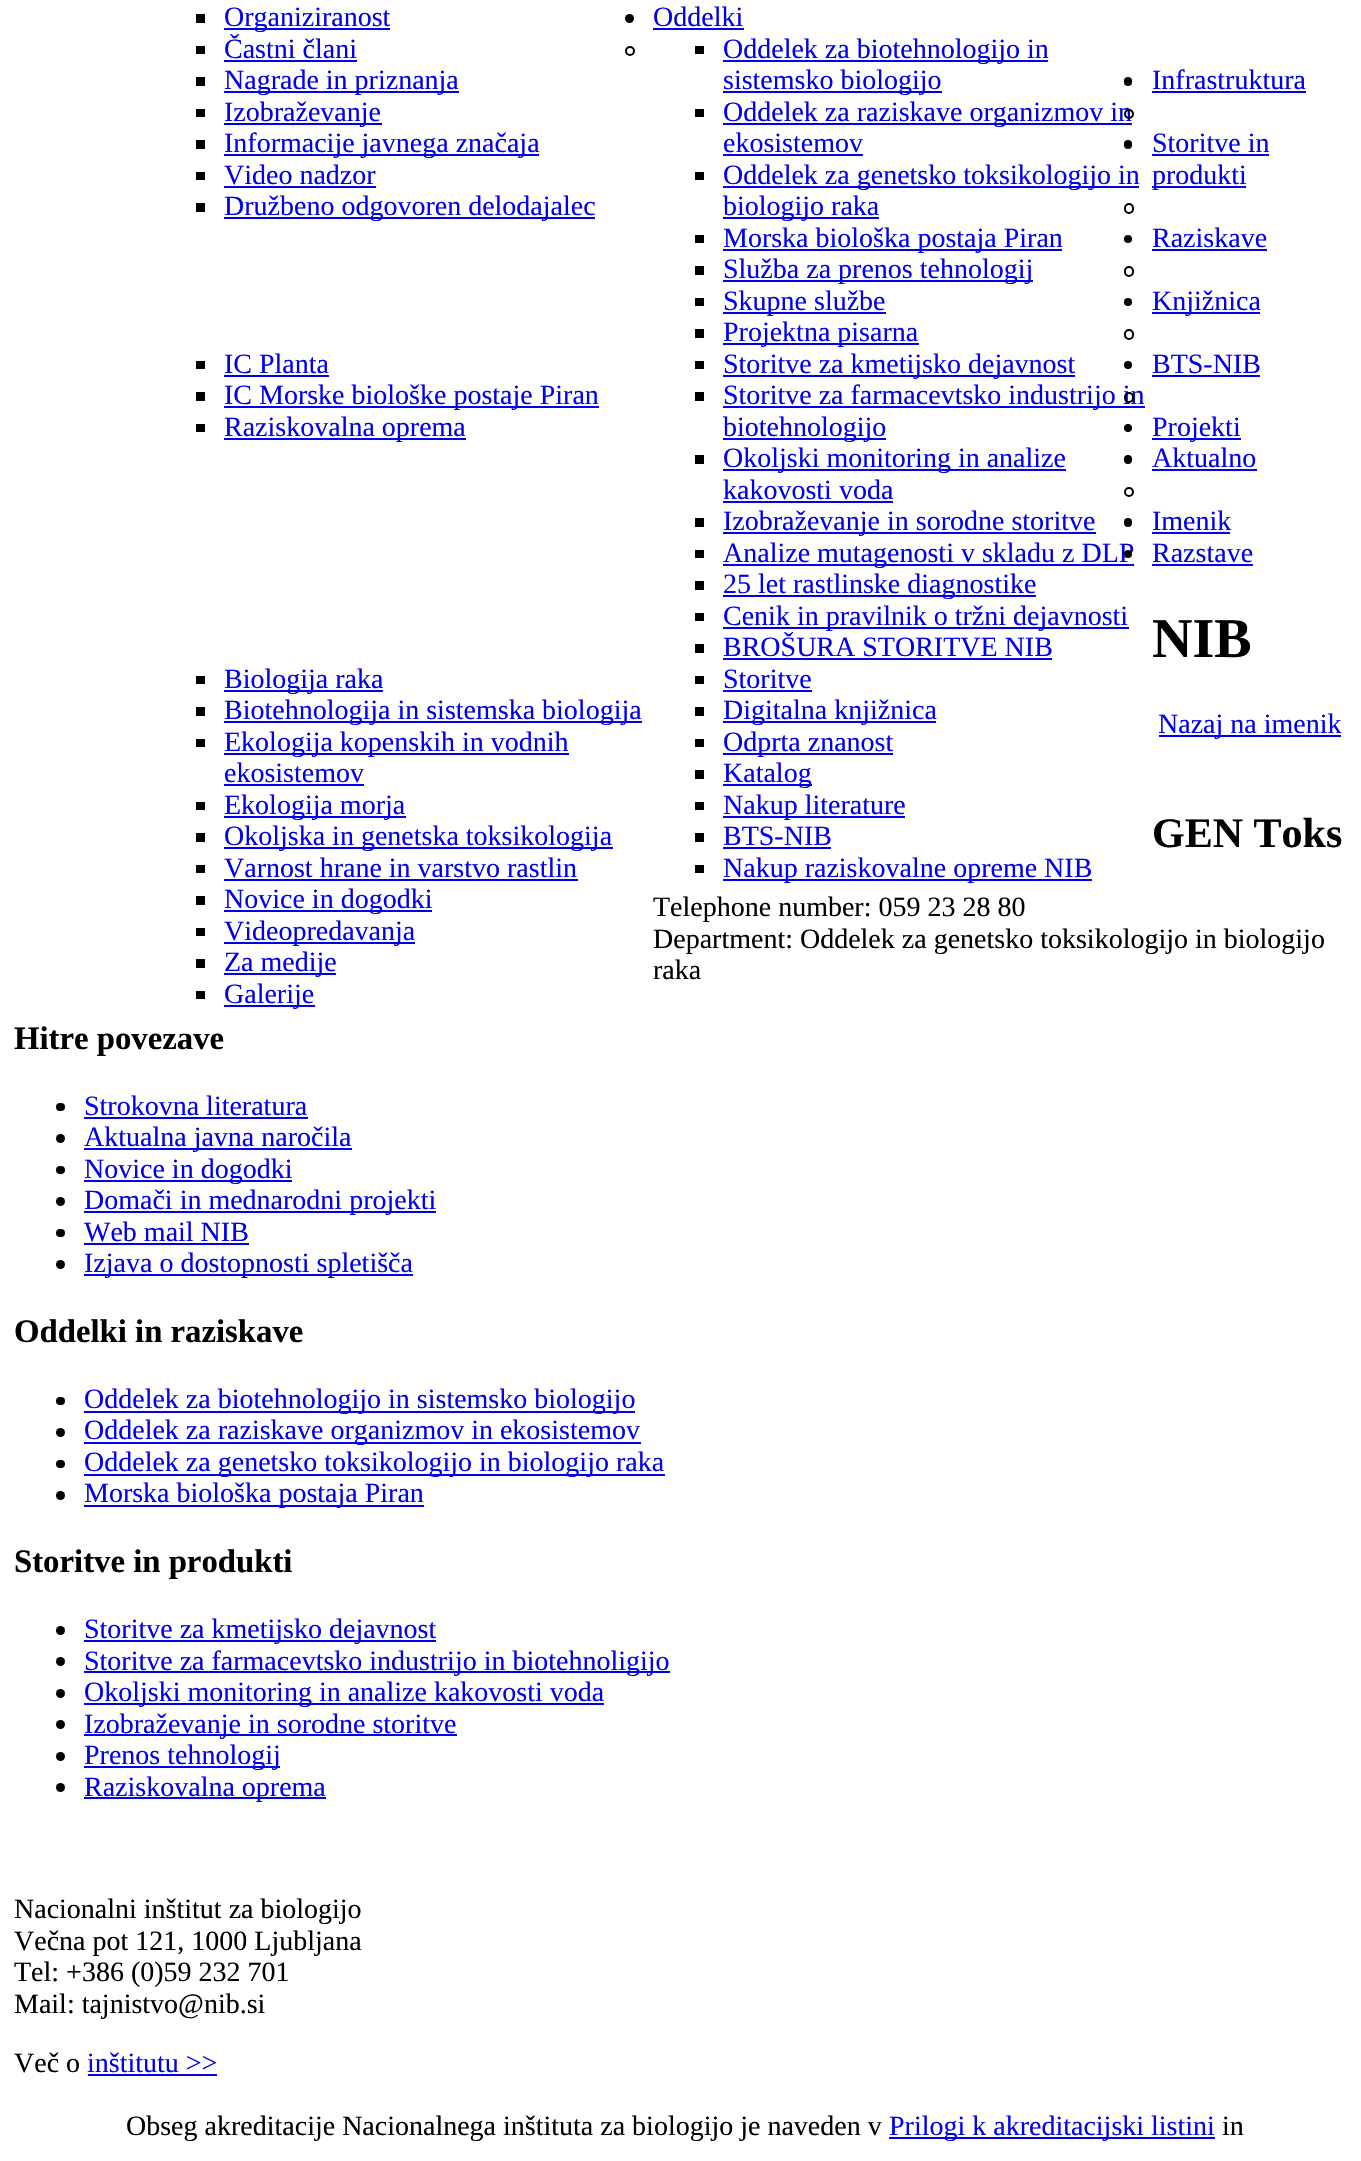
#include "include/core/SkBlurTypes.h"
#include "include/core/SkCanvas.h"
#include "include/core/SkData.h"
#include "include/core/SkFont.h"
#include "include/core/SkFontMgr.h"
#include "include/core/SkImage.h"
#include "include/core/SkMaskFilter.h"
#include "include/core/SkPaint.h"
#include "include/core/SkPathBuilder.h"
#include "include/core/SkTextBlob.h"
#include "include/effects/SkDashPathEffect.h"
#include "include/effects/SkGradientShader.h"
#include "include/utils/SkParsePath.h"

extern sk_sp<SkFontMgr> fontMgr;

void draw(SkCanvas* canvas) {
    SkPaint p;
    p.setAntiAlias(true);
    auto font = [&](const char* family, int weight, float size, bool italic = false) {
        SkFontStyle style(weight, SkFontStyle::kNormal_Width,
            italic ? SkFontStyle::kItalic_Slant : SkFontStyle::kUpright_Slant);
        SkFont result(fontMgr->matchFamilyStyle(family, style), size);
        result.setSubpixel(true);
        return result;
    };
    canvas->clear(0xFFFFFFFF);
    p.setColor(0xFF000000);
    canvas->drawRect(SkRect::MakeLTRB(196, 14, 205, 23), p);
    p.setColor(0xFF0000EE);
    canvas->drawRect(SkRect::MakeLTRB(224, 28, 390, 30), p);
    auto font1 = font("Liberation Serif", 400, 28);
    canvas->drawString("Organiziranost", 224, 26, font1, p);
    p.setColor(0xFF000000);
    canvas->drawRect(SkRect::MakeLTRB(196, 46, 205, 54), p);
    p.setColor(0xFF0000EE);
    canvas->drawString("Častni člani", 224, 58, font1, p);
    {
        const struct { float l, t, r, b; SkColor color; } items[] = {
            {224, 60, 357, 62, 0xFF0000EE},
            {196, 77, 205, 86, 0xFF000000},
            {224, 91, 459, 93, 0xFF0000EE},
        };
        for (auto [l, t, r, b, color] : items) {
            p.setColor(color);
            canvas->drawRect(SkRect::MakeLTRB(l, t, r, b), p);
        }
    }
    canvas->drawString("Nagrade in priznanja", 224, 89, font1, p);
    p.setColor(0xFF000000);
    canvas->drawRect(SkRect::MakeLTRB(196, 109, 205, 117), p);
    p.setColor(0xFF0000EE);
    canvas->drawRect(SkRect::MakeLTRB(224, 123, 382, 125), p);
    canvas->drawString("Izobraževanje", 224, 121, font1, p);
    p.setColor(0xFF000000);
    canvas->drawRect(SkRect::MakeLTRB(196, 140, 205, 149), p);
    p.setColor(0xFF0000EE);
    canvas->drawRect(SkRect::MakeLTRB(224, 154, 539, 156), p);
    canvas->drawString("Informacije javnega značaja", 224, 152, font1, p);
    p.setColor(0xFF000000);
    canvas->drawRect(SkRect::MakeLTRB(196, 172, 205, 180), p);
    p.setColor(0xFF0000EE);
    canvas->drawString("Video nadzor", 224, 184, font1, p);
    {
        const struct { float l, t, r, b; SkColor color; } items[] = {
            {224, 186, 376, 188, 0xFF0000EE},
            {196, 203, 205, 212, 0xFF000000},
            {224, 217, 595, 219, 0xFF0000EE},
        };
        for (auto [l, t, r, b, color] : items) {
            p.setColor(color);
            canvas->drawRect(SkRect::MakeLTRB(l, t, r, b), p);
        }
    }
    canvas->drawString("Družbeno odgovoren delodajalec", 224, 215, font1, p);
    p.setColor(0xFF000000);
    canvas->drawCircle(629.5f, 18.5f, 4.5f, p);
    p.setColor(0xFF0000EE);
    canvas->drawString("Oddelki", 653, 26, font1, p);
    canvas->drawRect(SkRect::MakeLTRB(653, 28, 744, 30), p);
    p.setStyle(SkPaint::kStroke_Style);
    p.setStrokeWidth(2);
    p.setColor(0xFF000000);
    canvas->drawCircle(630, 51, 4, p);
    p.setStyle(SkPaint::kFill_Style);
    canvas->drawRect(SkRect::MakeLTRB(695, 46, 704, 54), p);
    p.setColor(0xFF0000EE);
    canvas->drawRect(SkRect::MakeLTRB(723, 60, 1048, 62), p);
    canvas->drawString("Oddelek za biotehnologijo in", 723, 58, font1, p);
    canvas->drawRect(SkRect::MakeLTRB(723, 91, 942, 93), p);
    canvas->drawString("sistemsko biologijo", 723, 89, font1, p);
    p.setColor(0xFF000000);
    canvas->drawRect(SkRect::MakeLTRB(695, 109, 704, 117), p);
    p.setColor(0xFF0000EE);
    canvas->drawRect(SkRect::MakeLTRB(723, 123, 1132, 125), p);
    canvas->drawString("Oddelek za raziskave organizmov in", 723, 121, font1, p);
    canvas->drawString("ekosistemov", 723, 152, font1, p);
    {
        const struct { float l, t, r, b; SkColor color; } items[] = {
            {723, 154, 863, 156, 0xFF0000EE},
            {695, 172, 704, 180, 0xFF000000},
            {723, 186, 1139, 188, 0xFF0000EE},
        };
        for (auto [l, t, r, b, color] : items) {
            p.setColor(color);
            canvas->drawRect(SkRect::MakeLTRB(l, t, r, b), p);
        }
    }
    canvas->drawString("Oddelek za genetsko toksikologijo in", 723, 184, font1, p);
    canvas->drawRect(SkRect::MakeLTRB(723, 217, 879, 219), p);
    canvas->drawString("biologijo raka", 723, 215, font1, p);
    p.setColor(0xFF000000);
    canvas->drawRect(SkRect::MakeLTRB(695, 235, 704, 243), p);
    p.setColor(0xFF0000EE);
    canvas->drawRect(SkRect::MakeLTRB(723, 249, 1062, 251), p);
    canvas->drawString("Morska biološka postaja Piran", 723, 247, font1, p);
    p.setColor(0xFF000000);
    canvas->drawRect(SkRect::MakeLTRB(695, 266, 704, 275), p);
    p.setColor(0xFF0000EE);
    canvas->drawRect(SkRect::MakeLTRB(723, 280, 1033, 282), p);
    canvas->drawString("Služba za prenos tehnologij", 723, 278, font1, p);
    p.setColor(0xFF000000);
    canvas->drawRect(SkRect::MakeLTRB(695, 298, 704, 306), p);
    p.setColor(0xFF0000EE);
    canvas->drawRect(SkRect::MakeLTRB(723, 312, 886, 314), p);
    canvas->drawString("Skupne službe", 723, 310, font1, p);
    p.setColor(0xFF000000);
    canvas->drawRect(SkRect::MakeLTRB(695, 329, 704, 338), p);
    p.setColor(0xFF0000EE);
    canvas->drawRect(SkRect::MakeLTRB(723, 343, 919, 345), p);
    canvas->drawString("Projektna pisarna", 723, 341, font1, p);
    p.setColor(0xFF000000);
    canvas->drawRoundRect(SkRect::MakeLTRB(1124, 77, 1132, 86), 4, 4, p);
    p.setColor(0xFF0000EE);
    canvas->drawString("Infrastruktura", 1152, 89, font1, p);
    canvas->drawRect(SkRect::MakeLTRB(1152, 91, 1306, 93), p);
    p.setStyle(SkPaint::kStroke_Style);
    p.setColor(0xFF000000);
    canvas->drawCircle(1129, 114, 4, p);
    p.setStyle(SkPaint::kFill_Style);
    canvas->drawRect(SkRect::MakeLTRB(196, 361, 205, 369), p);
    p.setColor(0xFF0000EE);
    canvas->drawString("IC Planta", 224, 373, font1, p);
    {
        const struct { float l, t, r, b; SkColor color; } items[] = {
            {224, 375, 329, 377, 0xFF0000EE},
            {196, 392, 205, 401, 0xFF000000},
            {224, 406, 599, 408, 0xFF0000EE},
        };
        for (auto [l, t, r, b, color] : items) {
            p.setColor(color);
            canvas->drawRect(SkRect::MakeLTRB(l, t, r, b), p);
        }
    }
    canvas->drawString("IC Morske biološke postaje Piran", 224, 404, font1, p);
    p.setColor(0xFF000000);
    canvas->drawRect(SkRect::MakeLTRB(196, 424, 205, 432), p);
    p.setColor(0xFF0000EE);
    canvas->drawRect(SkRect::MakeLTRB(224, 438, 466, 440), p);
    canvas->drawString("Raziskovalna oprema", 224, 436, font1, p);
    p.setColor(0xFF000000);
    canvas->drawRoundRect(SkRect::MakeLTRB(1124, 140, 1132, 149), 4, 4, p);
    p.setColor(0xFF0000EE);
    canvas->drawString("Storitve in", 1152, 152, font1, p);
    canvas->drawRect(SkRect::MakeLTRB(1152, 154, 1269, 156), p);
    canvas->drawRect(SkRect::MakeLTRB(1152, 186, 1246, 188), p);
    canvas->drawString("produkti", 1152, 184, font1, p);
    p.setStyle(SkPaint::kStroke_Style);
    p.setColor(0xFF000000);
    canvas->drawRoundRect(SkRect::MakeLTRB(1125, 204, 1133, 213), 4, 4, p);
    p.setStyle(SkPaint::kFill_Style);
    canvas->drawRect(SkRect::MakeLTRB(695, 361, 704, 369), p);
    p.setColor(0xFF0000EE);
    canvas->drawRect(SkRect::MakeLTRB(723, 375, 1075, 377), p);
    canvas->drawString("Storitve za kmetijsko dejavnost", 723, 373, font1, p);
    p.setColor(0xFF000000);
    canvas->drawRect(SkRect::MakeLTRB(695, 392, 704, 401), p);
    p.setColor(0xFF0000EE);
    canvas->drawRect(SkRect::MakeLTRB(723, 406, 1145, 408), p);
    canvas->drawString("Storitve za farmacevtsko industrijo in", 723, 404, font1, p);
    canvas->drawRect(SkRect::MakeLTRB(723, 438, 886, 440), p);
    canvas->drawString("biotehnologijo", 723, 436, font1, p);
    p.setColor(0xFF000000);
    canvas->drawRect(SkRect::MakeLTRB(695, 455, 704, 464), p);
    p.setColor(0xFF0000EE);
    canvas->drawRect(SkRect::MakeLTRB(723, 469, 1066, 471), p);
    canvas->drawString("Okoljski monitoring in analize", 723, 467, font1, p);
    canvas->drawString("kakovosti voda", 723, 499, font1, p);
    {
        const struct { float l, t, r, b; SkColor color; } items[] = {
            {723, 501, 893, 503, 0xFF0000EE},
            {695, 518, 704, 527, 0xFF000000},
            {723, 532, 1096, 534, 0xFF0000EE},
        };
        for (auto [l, t, r, b, color] : items) {
            p.setColor(color);
            canvas->drawRect(SkRect::MakeLTRB(l, t, r, b), p);
        }
    }
    canvas->drawString("Izobraževanje in sorodne storitve", 723, 530, font1, p);
    p.setColor(0xFF000000);
    canvas->drawRect(SkRect::MakeLTRB(695, 550, 704, 558), p);
    p.setColor(0xFF0000EE);
    canvas->drawRect(SkRect::MakeLTRB(723, 564, 1134, 566), p);
    canvas->drawString("Analize mutagenosti v skladu z DLP", 723, 562, font1, p);
    p.setColor(0xFF000000);
    canvas->drawRect(SkRect::MakeLTRB(695, 581, 704, 590), p);
    p.setColor(0xFF0000EE);
    canvas->drawRect(SkRect::MakeLTRB(723, 595, 1036, 597), p);
    canvas->drawString("25 let rastlinske diagnostike", 723, 593, font1, p);
    p.setColor(0xFF000000);
    canvas->drawRect(SkRect::MakeLTRB(695, 613, 704, 621), p);
    p.setColor(0xFF0000EE);
    canvas->drawRect(SkRect::MakeLTRB(723, 627, 1129, 629), p);
    canvas->drawString("Cenik in pravilnik o tržni dejavnosti", 723, 625, font1, p);
    p.setColor(0xFF000000);
    canvas->drawRect(SkRect::MakeLTRB(695, 644, 704, 653), p);
    p.setColor(0xFF0000EE);
    canvas->drawString("BROŠURA STORITVE NIB", 723, 656, font1, p);
    canvas->drawRect(SkRect::MakeLTRB(723, 658, 1052, 660), p);
    p.setColor(0xFF000000);
    canvas->drawCircle(1128, 239, 4, p);
    p.setColor(0xFF0000EE);
    canvas->drawString("Raziskave", 1152, 247, font1, p);
    canvas->drawRect(SkRect::MakeLTRB(1152, 249, 1267, 251), p);
    p.setStyle(SkPaint::kStroke_Style);
    p.setColor(0xFF000000);
    canvas->drawRoundRect(SkRect::MakeLTRB(1125, 267, 1133, 276), 4, 4, p);
    p.setStyle(SkPaint::kFill_Style);
    canvas->drawRect(SkRect::MakeLTRB(196, 676, 205, 684), p);
    p.setColor(0xFF0000EE);
    canvas->drawRect(SkRect::MakeLTRB(224, 690, 383, 692), p);
    canvas->drawString("Biologija raka", 224, 688, font1, p);
    p.setColor(0xFF000000);
    canvas->drawRect(SkRect::MakeLTRB(196, 707, 205, 716), p);
    p.setColor(0xFF0000EE);
    canvas->drawRect(SkRect::MakeLTRB(224, 721, 642, 723), p);
    canvas->drawString("Biotehnologija in sistemska biologija", 224, 719, font1, p);
    p.setColor(0xFF000000);
    canvas->drawRect(SkRect::MakeLTRB(196, 739, 205, 747), p);
    p.setColor(0xFF0000EE);
    canvas->drawRect(SkRect::MakeLTRB(224, 753, 569, 755), p);
    canvas->drawString("Ekologija kopenskih in vodnih", 224, 751, font1, p);
    canvas->drawString("ekosistemov", 224, 782, font1, p);
    {
        const struct { float l, t, r, b; SkColor color; } items[] = {
            {224, 784, 364, 786, 0xFF0000EE},
            {196, 802, 205, 810, 0xFF000000},
            {224, 816, 406, 818, 0xFF0000EE},
        };
        for (auto [l, t, r, b, color] : items) {
            p.setColor(color);
            canvas->drawRect(SkRect::MakeLTRB(l, t, r, b), p);
        }
    }
    canvas->drawString("Ekologija morja", 224, 814, font1, p);
    p.setColor(0xFF000000);
    canvas->drawRect(SkRect::MakeLTRB(196, 833, 205, 842), p);
    p.setColor(0xFF0000EE);
    canvas->drawRect(SkRect::MakeLTRB(224, 847, 613, 849), p);
    canvas->drawString("Okoljska in genetska toksikologija", 224, 845, font1, p);
    p.setColor(0xFF000000);
    canvas->drawRect(SkRect::MakeLTRB(196, 865, 205, 873), p);
    p.setColor(0xFF0000EE);
    canvas->drawString("Varnost hrane in varstvo rastlin", 224, 877, font1, p);
    canvas->drawRect(SkRect::MakeLTRB(224, 879, 578, 881), p);
    p.setColor(0xFF000000);
    canvas->drawCircle(1128, 302, 4, p);
    p.setColor(0xFF0000EE);
    canvas->drawRect(SkRect::MakeLTRB(1152, 312, 1260, 314), p);
    canvas->drawString("Knjižnica", 1152, 310, font1, p);
    p.setStyle(SkPaint::kStroke_Style);
    p.setColor(0xFF000000);
    canvas->drawRoundRect(SkRect::MakeLTRB(1125, 330, 1133, 339), 4, 4, p);
    p.setStyle(SkPaint::kFill_Style);
    canvas->drawRect(SkRect::MakeLTRB(695, 676, 704, 684), p);
    p.setColor(0xFF0000EE);
    canvas->drawString("Storitve", 723, 688, font1, p);
    {
        const struct { float l, t, r, b; SkColor color; } items[] = {
            {723, 690, 812, 692, 0xFF0000EE},
            {695, 707, 704, 716, 0xFF000000},
            {723, 721, 936, 723, 0xFF0000EE},
        };
        for (auto [l, t, r, b, color] : items) {
            p.setColor(color);
            canvas->drawRect(SkRect::MakeLTRB(l, t, r, b), p);
        }
    }
    canvas->drawString("Digitalna knjižnica", 723, 719, font1, p);
    p.setColor(0xFF000000);
    canvas->drawRect(SkRect::MakeLTRB(695, 739, 704, 747), p);
    p.setColor(0xFF0000EE);
    canvas->drawRect(SkRect::MakeLTRB(723, 753, 893, 755), p);
    canvas->drawString("Odprta znanost", 723, 751, font1, p);
    p.setColor(0xFF000000);
    canvas->drawRect(SkRect::MakeLTRB(695, 770, 704, 779), p);
    p.setColor(0xFF0000EE);
    canvas->drawRect(SkRect::MakeLTRB(723, 784, 812, 786), p);
    canvas->drawString("Katalog", 723, 782, font1, p);
    p.setColor(0xFF000000);
    canvas->drawRect(SkRect::MakeLTRB(695, 802, 704, 810), p);
    p.setColor(0xFF0000EE);
    canvas->drawRect(SkRect::MakeLTRB(723, 816, 905, 818), p);
    canvas->drawString("Nakup literature", 723, 814, font1, p);
    p.setColor(0xFF000000);
    canvas->drawCircle(1128, 365, 4, p);
    p.setColor(0xFF0000EE);
    canvas->drawString("BTS-NIB", 1152, 373, font1, p);
    canvas->drawRect(SkRect::MakeLTRB(1152, 375, 1260, 377), p);
    p.setStyle(SkPaint::kStroke_Style);
    p.setColor(0xFF000000);
    canvas->drawRoundRect(SkRect::MakeLTRB(1125, 393, 1133, 402), 4, 4, p);
    p.setStyle(SkPaint::kFill_Style);
    canvas->drawRect(SkRect::MakeLTRB(695, 833, 704, 842), p);
    p.setColor(0xFF0000EE);
    canvas->drawString("BTS-NIB", 723, 845, font1, p);
    {
        const struct { float l, t, r, b; SkColor color; } items[] = {
            {723, 847, 831, 849, 0xFF0000EE},
            {695, 865, 704, 873, 0xFF000000},
            {723, 879, 1092, 881, 0xFF0000EE},
        };
        for (auto [l, t, r, b, color] : items) {
            p.setColor(color);
            canvas->drawRect(SkRect::MakeLTRB(l, t, r, b), p);
        }
    }
    canvas->drawString("Nakup raziskovalne opreme NIB", 723, 877, font1, p);
    p.setColor(0xFF000000);
    canvas->drawCircle(1128, 428, 4, p);
    p.setColor(0xFF0000EE);
    canvas->drawRect(SkRect::MakeLTRB(1152, 438, 1241, 440), p);
    canvas->drawString("Projekti", 1152, 436, font1, p);
    p.setColor(0xFF000000);
    canvas->drawRoundRect(SkRect::MakeLTRB(1124, 455, 1132, 464), 4, 4, p);
    p.setColor(0xFF0000EE);
    canvas->drawString("Aktualno", 1152, 467, font1, p);
    canvas->drawRect(SkRect::MakeLTRB(1152, 469, 1257, 471), p);
    p.setStyle(SkPaint::kStroke_Style);
    p.setColor(0xFF000000);
    canvas->drawCircle(1129, 492, 4, p);
    p.setStyle(SkPaint::kFill_Style);
    canvas->drawRect(SkRect::MakeLTRB(196, 896, 205, 905), p);
    p.setColor(0xFF0000EE);
    canvas->drawRect(SkRect::MakeLTRB(224, 910, 432, 912), p);
    canvas->drawString("Novice in dogodki", 224, 908, font1, p);
    p.setColor(0xFF000000);
    canvas->drawRect(SkRect::MakeLTRB(196, 928, 205, 936), p);
    p.setColor(0xFF0000EE);
    canvas->drawRect(SkRect::MakeLTRB(224, 942, 415, 944), p);
    canvas->drawString("Videopredavanja", 224, 940, font1, p);
    p.setColor(0xFF000000);
    canvas->drawRect(SkRect::MakeLTRB(196, 959, 205, 968), p);
    p.setColor(0xFF0000EE);
    canvas->drawRect(SkRect::MakeLTRB(224, 973, 336, 975), p);
    canvas->drawString("Za medije", 224, 971, font1, p);
    p.setColor(0xFF000000);
    canvas->drawRect(SkRect::MakeLTRB(196, 991, 205, 999), p);
    p.setColor(0xFF0000EE);
    canvas->drawRect(SkRect::MakeLTRB(224, 1005, 315, 1007), p);
    canvas->drawString("Galerije", 224, 1003, font1, p);
    p.setColor(0xFF000000);
    canvas->drawRoundRect(SkRect::MakeLTRB(1124, 518, 1132, 527), 4, 4, p);
    p.setColor(0xFF0000EE);
    canvas->drawString("Imenik", 1152, 530, font1, p);
    canvas->drawRect(SkRect::MakeLTRB(1152, 532, 1230, 534), p);
    p.setColor(0xFF000000);
    canvas->drawCircle(1128, 554, 4, p);
    p.setColor(0xFF0000EE);
    canvas->drawString("Razstave", 1152, 562, font1, p);
    canvas->drawRect(SkRect::MakeLTRB(1152, 564, 1253, 566), p);
    auto font2 = font("Liberation Serif", 700, 56);
    p.setColor(0xFF000000);
    canvas->drawString("NIB", 1152, 657, font2, p);
    p.setColor(0xFF0000EE);
    canvas->drawRect(SkRect::MakeLTRB(1159, 735, 1341, 737), p);
    canvas->drawString("Nazaj na imenik", 1158, 733, font1, p);
    auto font3 = font("Liberation Serif", 700, 42);
    p.setColor(0xFF000000);
    canvas->drawString("GEN Toks", 1152, 847, font3, p);
    {
        const struct { const char* s; float x, y; } items[] = {
            {"Telephone number: 059 23 28 80", 653, 916},
            {"Department: Oddelek za genetsko toksikologijo in biologijo", 653, 948},
            {"raka", 653, 979},
        };
        for (auto [s, x, y] : items) {
            canvas->drawString(s, x, y, font1, p);
        }
    }
    auto font4 = font("Liberation Serif", 700, 32.75f);
    canvas->drawString("Hitre povezave", 14, 1049, font4, p);
    canvas->drawRoundRect(SkRect::MakeLTRB(56, 1103, 65, 1111), 4, 4, p);
    p.setColor(0xFF0000EE);
    canvas->drawString("Strokovna literatura", 84, 1115, font1, p);
    canvas->drawRect(SkRect::MakeLTRB(84, 1117, 308, 1119), p);
    p.setColor(0xFF000000);
    canvas->drawCircle(60.5f, 1138.5f, 4.5f, p);
    p.setColor(0xFF0000EE);
    canvas->drawRect(SkRect::MakeLTRB(84, 1148, 352, 1150), p);
    canvas->drawString("Aktualna javna naročila", 84, 1146, font1, p);
    p.setColor(0xFF000000);
    canvas->drawRoundRect(SkRect::MakeLTRB(56, 1166, 65, 1174), 4, 4, p);
    p.setColor(0xFF0000EE);
    canvas->drawRect(SkRect::MakeLTRB(84, 1180, 292, 1182), p);
    canvas->drawString("Novice in dogodki", 84, 1178, font1, p);
    p.setColor(0xFF000000);
    canvas->drawCircle(60.5f, 1201.5f, 4.5f, p);
    p.setColor(0xFF0000EE);
    canvas->drawRect(SkRect::MakeLTRB(84, 1211, 436, 1213), p);
    canvas->drawString("Domači in mednarodni projekti", 84, 1209, font1, p);
    p.setColor(0xFF000000);
    canvas->drawRoundRect(SkRect::MakeLTRB(56, 1229, 65, 1237), 4, 4, p);
    p.setColor(0xFF0000EE);
    canvas->drawString("Web mail NIB", 84, 1241, font1, p);
    canvas->drawRect(SkRect::MakeLTRB(84, 1243, 249, 1245), p);
    p.setColor(0xFF000000);
    canvas->drawCircle(60.5f, 1264.5f, 4.5f, p);
    p.setColor(0xFF0000EE);
    canvas->drawRect(SkRect::MakeLTRB(84, 1274, 413, 1276), p);
    canvas->drawString("Izjava o dostopnosti spletišča", 84, 1272, font1, p);
    p.setColor(0xFF000000);
    canvas->drawString("Oddelki in raziskave", 14, 1342, font4, p);
    canvas->drawRoundRect(SkRect::MakeLTRB(56, 1397, 65, 1405), 4, 4, p);
    p.setColor(0xFF0000EE);
    canvas->drawRect(SkRect::MakeLTRB(84, 1411, 635, 1413), p);
    canvas->drawString("Oddelek za biotehnologijo in sistemsko biologijo", 84, 1408, font1, p);
    p.setColor(0xFF000000);
    canvas->drawCircle(60.5f, 1432.5f, 4.5f, p);
    p.setColor(0xFF0000EE);
    canvas->drawRect(SkRect::MakeLTRB(84, 1442, 641, 1444), p);
    canvas->drawString("Oddelek za raziskave organizmov in ekosistemov", 84, 1439, font1, p);
    p.setColor(0xFF000000);
    canvas->drawRoundRect(SkRect::MakeLTRB(56, 1460, 65, 1468), 4, 4, p);
    p.setColor(0xFF0000EE);
    canvas->drawRect(SkRect::MakeLTRB(84, 1474, 665, 1476), p);
    canvas->drawString("Oddelek za genetsko toksikologijo in biologijo raka", 84, 1471, font1, p);
    p.setColor(0xFF000000);
    canvas->drawCircle(60.5f, 1495.5f, 4.5f, p);
    p.setColor(0xFF0000EE);
    canvas->drawRect(SkRect::MakeLTRB(84, 1505, 424, 1507), p);
    canvas->drawString("Morska biološka postaja Piran", 84, 1502, font1, p);
    p.setColor(0xFF000000);
    canvas->drawString("Storitve in produkti", 14, 1572, font4, p);
    canvas->drawCircle(60.5f, 1630.5f, 4.5f, p);
    p.setColor(0xFF0000EE);
    canvas->drawRect(SkRect::MakeLTRB(84, 1640, 436, 1642), p);
    canvas->drawString("Storitve za kmetijsko dejavnost", 84, 1638, font1, p);
    p.setColor(0xFF000000);
    canvas->drawCircle(60.5f, 1661.5f, 4.5f, p);
    p.setColor(0xFF0000EE);
    canvas->drawRect(SkRect::MakeLTRB(84, 1671, 670, 1673), p);
    canvas->drawString("Storitve za farmacevtsko industrijo in biotehnoligijo", 84, 1670, font1, p);
    p.setColor(0xFF000000);
    canvas->drawCircle(60.5f, 1693.5f, 4.5f, p);
    p.setColor(0xFF0000EE);
    canvas->drawRect(SkRect::MakeLTRB(84, 1703, 604, 1705), p);
    canvas->drawString("Okoljski monitoring in analize kakovosti voda", 84, 1701, font1, p);
    p.setColor(0xFF000000);
    canvas->drawCircle(60.5f, 1724.5f, 4.5f, p);
    p.setColor(0xFF0000EE);
    canvas->drawRect(SkRect::MakeLTRB(84, 1734, 457, 1736), p);
    canvas->drawString("Izobraževanje in sorodne storitve", 84, 1733, font1, p);
    p.setColor(0xFF000000);
    canvas->drawCircle(60.5f, 1756.5f, 4.5f, p);
    p.setColor(0xFF0000EE);
    canvas->drawRect(SkRect::MakeLTRB(84, 1766, 280, 1768), p);
    canvas->drawString("Prenos tehnologij", 84, 1764, font1, p);
    p.setColor(0xFF000000);
    canvas->drawCircle(60.5f, 1787.5f, 4.5f, p);
    p.setColor(0xFF0000EE);
    canvas->drawRect(SkRect::MakeLTRB(84, 1797, 326, 1799), p);
    canvas->drawString("Raziskovalna oprema", 84, 1796, font1, p);
    p.setColor(0xFF000000);
    {
        const struct { const char* s; float x, y; } items[] = {
            {"Nacionalni inštitut za biologijo", 14, 1918},
            {"Večna pot 121, 1000 Ljubljana", 14, 1950},
            {"Tel: +386 (0)59 232 701", 14, 1981},
            {"Mail: tajnistvo@nib.si", 14, 2013},
            {"Več o", 14, 2072},
        };
        for (auto [s, x, y] : items) {
            canvas->drawString(s, x, y, font1, p);
        }
    }
    p.setColor(0xFF0000EE);
    canvas->drawString("inštitutu >>", 87, 2072, font1, p);
    canvas->drawRect(SkRect::MakeLTRB(88, 2074, 217, 2076), p);
    p.setColor(0xFF000000);
    canvas->drawString("Obseg akreditacije Nacionalnega inštituta za biologijo je naveden v", 126, 2135, font1, p);
    p.setColor(0xFF0000EE);
    canvas->drawRect(SkRect::MakeLTRB(889, 2137, 1215, 2139), p);
    canvas->drawString("Prilogi k akreditacijski listini", 889, 2135, font1, p);
    p.setColor(0xFF000000);
    canvas->drawString("in", 1222, 2135, font1, p);
}
